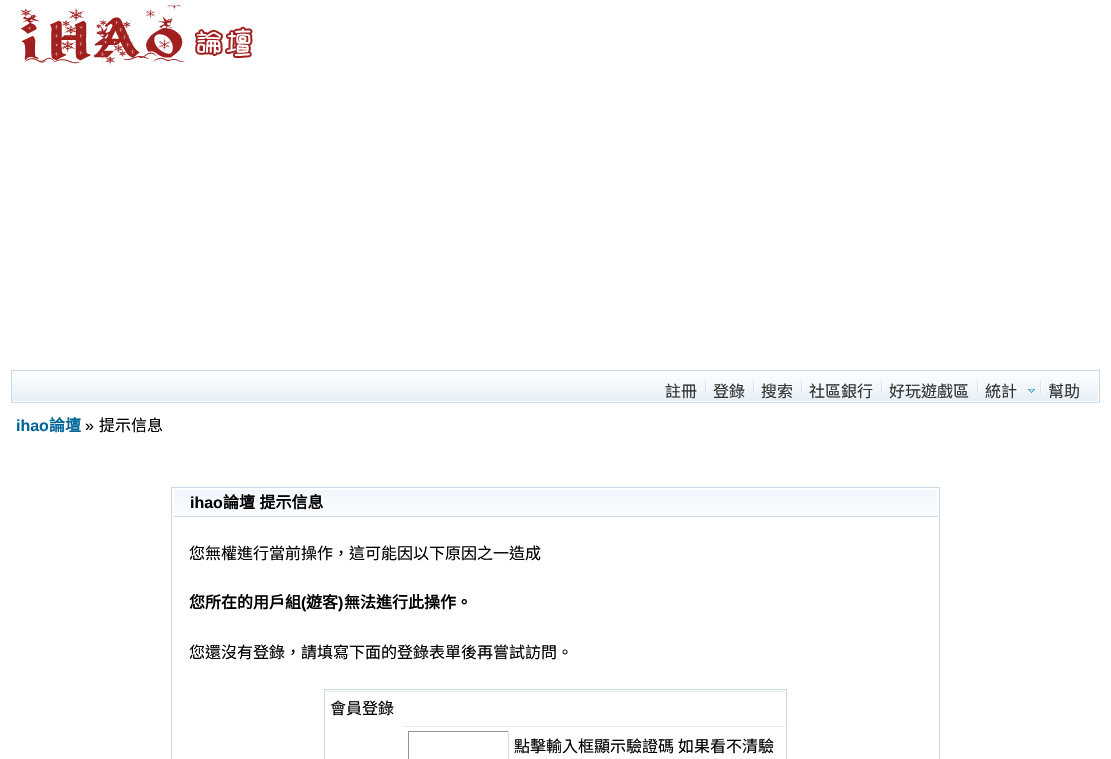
#include "include/core/SkBlurTypes.h"
#include "include/core/SkCanvas.h"
#include "include/core/SkData.h"
#include "include/core/SkFont.h"
#include "include/core/SkFontMgr.h"
#include "include/core/SkImage.h"
#include "include/core/SkMaskFilter.h"
#include "include/core/SkPaint.h"
#include "include/core/SkPathBuilder.h"
#include "include/core/SkTextBlob.h"
#include "include/effects/SkDashPathEffect.h"
#include "include/effects/SkGradientShader.h"
#include "include/utils/SkParsePath.h"

extern sk_sp<SkFontMgr> fontMgr;

void draw(SkCanvas* canvas) {
    SkPaint p;
    p.setAntiAlias(true);
    auto font = [&](const char* family, int weight, float size, bool italic = false) {
        SkFontStyle style(weight, SkFontStyle::kNormal_Width,
            italic ? SkFontStyle::kItalic_Slant : SkFontStyle::kUpright_Slant);
        SkFont result(fontMgr->matchFamilyStyle(family, style), size);
        result.setSubpixel(true);
        return result;
    };
    auto drawTracked = [&](const char* s, float x, float y, const SkFont& font, const SkPaint& ink, float letter, float word) {
        std::vector<SkGlyphID> glyphs(font.countText(s, strlen(s), SkTextEncoding::kUTF8));
        std::vector<float> xs(glyphs.size());
        font.textToGlyphs(s, strlen(s), SkTextEncoding::kUTF8, glyphs);
        font.getXPos(glyphs, xs, x);
        float extra = 0;
        for (size_t i = 0; i < glyphs.size(); i++) {
            xs[i] += extra;
            extra += letter + word * (glyphs[i] == font.unicharToGlyph(' '));
        }
        canvas->drawTextBlob(SkTextBlob::MakeFromPosHGlyphs(glyphs, xs, y, font), 0, 0, ink);
    };
    auto drawPhoto = [&](const char* path, float l, float t, float r, float b) {
        auto image = SkImages::DeferredFromEncodedData(SkData::MakeFromFileName(path));
        canvas->drawImageRect(image, SkRect::MakeLTRB(l, t, r, b), SkSamplingOptions());
    };
    canvas->clear(0xFFFFFFFF);
    drawPhoto("media/1.png", 20, 5, 253, 65);
    drawPhoto("media/2.png", 12, 371, 1098, 401);
    p.setStyle(SkPaint::kStroke_Style);
    p.setStrokeWidth(1);
    p.setColor(0xFFCAD9EA);
    canvas->drawRect(SkRect::MakeLTRB(11.5f, 370.5f, 1099.5f, 402.5f), p);
    p.setStyle(SkPaint::kFill_Style);
    p.setColor(0xFFFFFFFF);
    canvas->drawRect(SkRect::MakeLTRB(1098, 402, 1099, 408), p);
    auto font1 = font("Noto Sans CJK TC", 400, 16);
    p.setColor(0xFF333333);
    canvas->drawString("註冊", 665, 397, font1, p);
    drawPhoto("media/3.png", 705, 381, 707, 394);
    canvas->drawString("登錄", 713, 397, font1, p);
    drawPhoto("media/3.png", 753, 381, 755, 394);
    canvas->drawString("搜索", 761, 397, font1, p);
    drawPhoto("media/3.png", 801, 381, 803, 394);
    canvas->drawString("社區銀行", 809, 397, font1, p);
    drawPhoto("media/3.png", 881, 381, 883, 394);
    canvas->drawString("好玩遊戲區", 889, 397, font1, p);
    drawPhoto("media/4.png", 1028, 389, 1035, 393);
    drawPhoto("media/3.png", 977, 381, 979, 394);
    canvas->drawString("統計", 985, 397, font1, p);
    drawPhoto("media/3.png", 1040, 381, 1042, 394);
    canvas->drawString("幫助", 1048, 397, font1, p);
    auto font2 = font("Liberation Sans", 700, 16);
    p.setColor(0xFF006699);
    canvas->drawString("ihao", 16, 431, font2, p);
    auto font3 = font("Noto Sans CJK TC", 700, 16);
    canvas->drawString("論壇", 49, 431, font3, p);
    auto font4 = font("Liberation Sans", 400, 16);
    p.setColor(0xFF000000);
    canvas->drawString("»", 85, 431, font4, p);
    canvas->drawString("提示信息", 99, 431, font1, p);
    p.setStyle(SkPaint::kStroke_Style);
    p.setColor(0xFFCAD9EA);
    canvas->drawRect(SkRect::MakeLTRB(171.5f, 487.5f, 939.5f, 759.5f), p);
    drawPhoto("media/5.png", 174, 490, 937, 516);
    p.setStyle(SkPaint::kFill_Style);
    canvas->drawRect(SkRect::MakeLTRB(173, 516, 938, 517), p);
    p.setColor(0xFFFFFFFF);
    canvas->drawRect(SkRect::MakeLTRB(173, 516, 174, 517), p);
    p.setColor(0xFF000000);
    canvas->drawString("ihao", 190, 508, font2, p);
    drawTracked("論壇 提示信息", 223, 508, font3, p, 0, 1);
    canvas->drawString("您無權進行當前操作，這可能因以下原因之一造成", 189, 559, font1, p);
    canvas->drawString("您所在的用戶組", 189, 608, font3, p);
    canvas->drawString("(", 301, 608, font2, p);
    canvas->drawString("遊客", 306, 608, font3, p);
    canvas->drawString(")", 338, 608, font2, p);
    canvas->drawString("無法進行此操作。", 344, 608, font3, p);
    canvas->drawString("您還沒有登錄，請填寫下面的登錄表單後再嘗試訪問。", 189, 658, font1, p);
    p.setStyle(SkPaint::kStroke_Style);
    p.setColor(0xFFCAD9EA);
    canvas->drawRect(SkRect::MakeLTRB(324.5f, 689.5f, 786.5f, 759.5f), p);
    p.setStyle(SkPaint::kFill_Style);
    p.setColor(0xFFE8E8E8);
    canvas->drawRect(SkRect::MakeLTRB(326, 691, 785, 692), p);
    p.setColor(0xFF000000);
    canvas->drawString("會員登錄", 330, 714, font1, p);
    {
        const struct { float l, t, r, b; SkColor color; } items[] = {
            {404, 726, 785, 727, 0xFFE8E8E8},
            {408, 731, 509, 732, 0xFF939393},
            {508, 731, 509, 759, 0xFFDDDDDD},
            {408, 731, 409, 759, 0xFF939393},
        };
        for (auto [l, t, r, b, color] : items) {
            p.setColor(color);
            canvas->drawRect(SkRect::MakeLTRB(l, t, r, b), p);
        }
    }
    p.setColor(0xFF000000);
    canvas->drawString("點擊輸入框顯示驗證碼", 514, 752, font1, p);
    canvas->drawString("如果看不清驗", 678, 752, font1, p);
}
